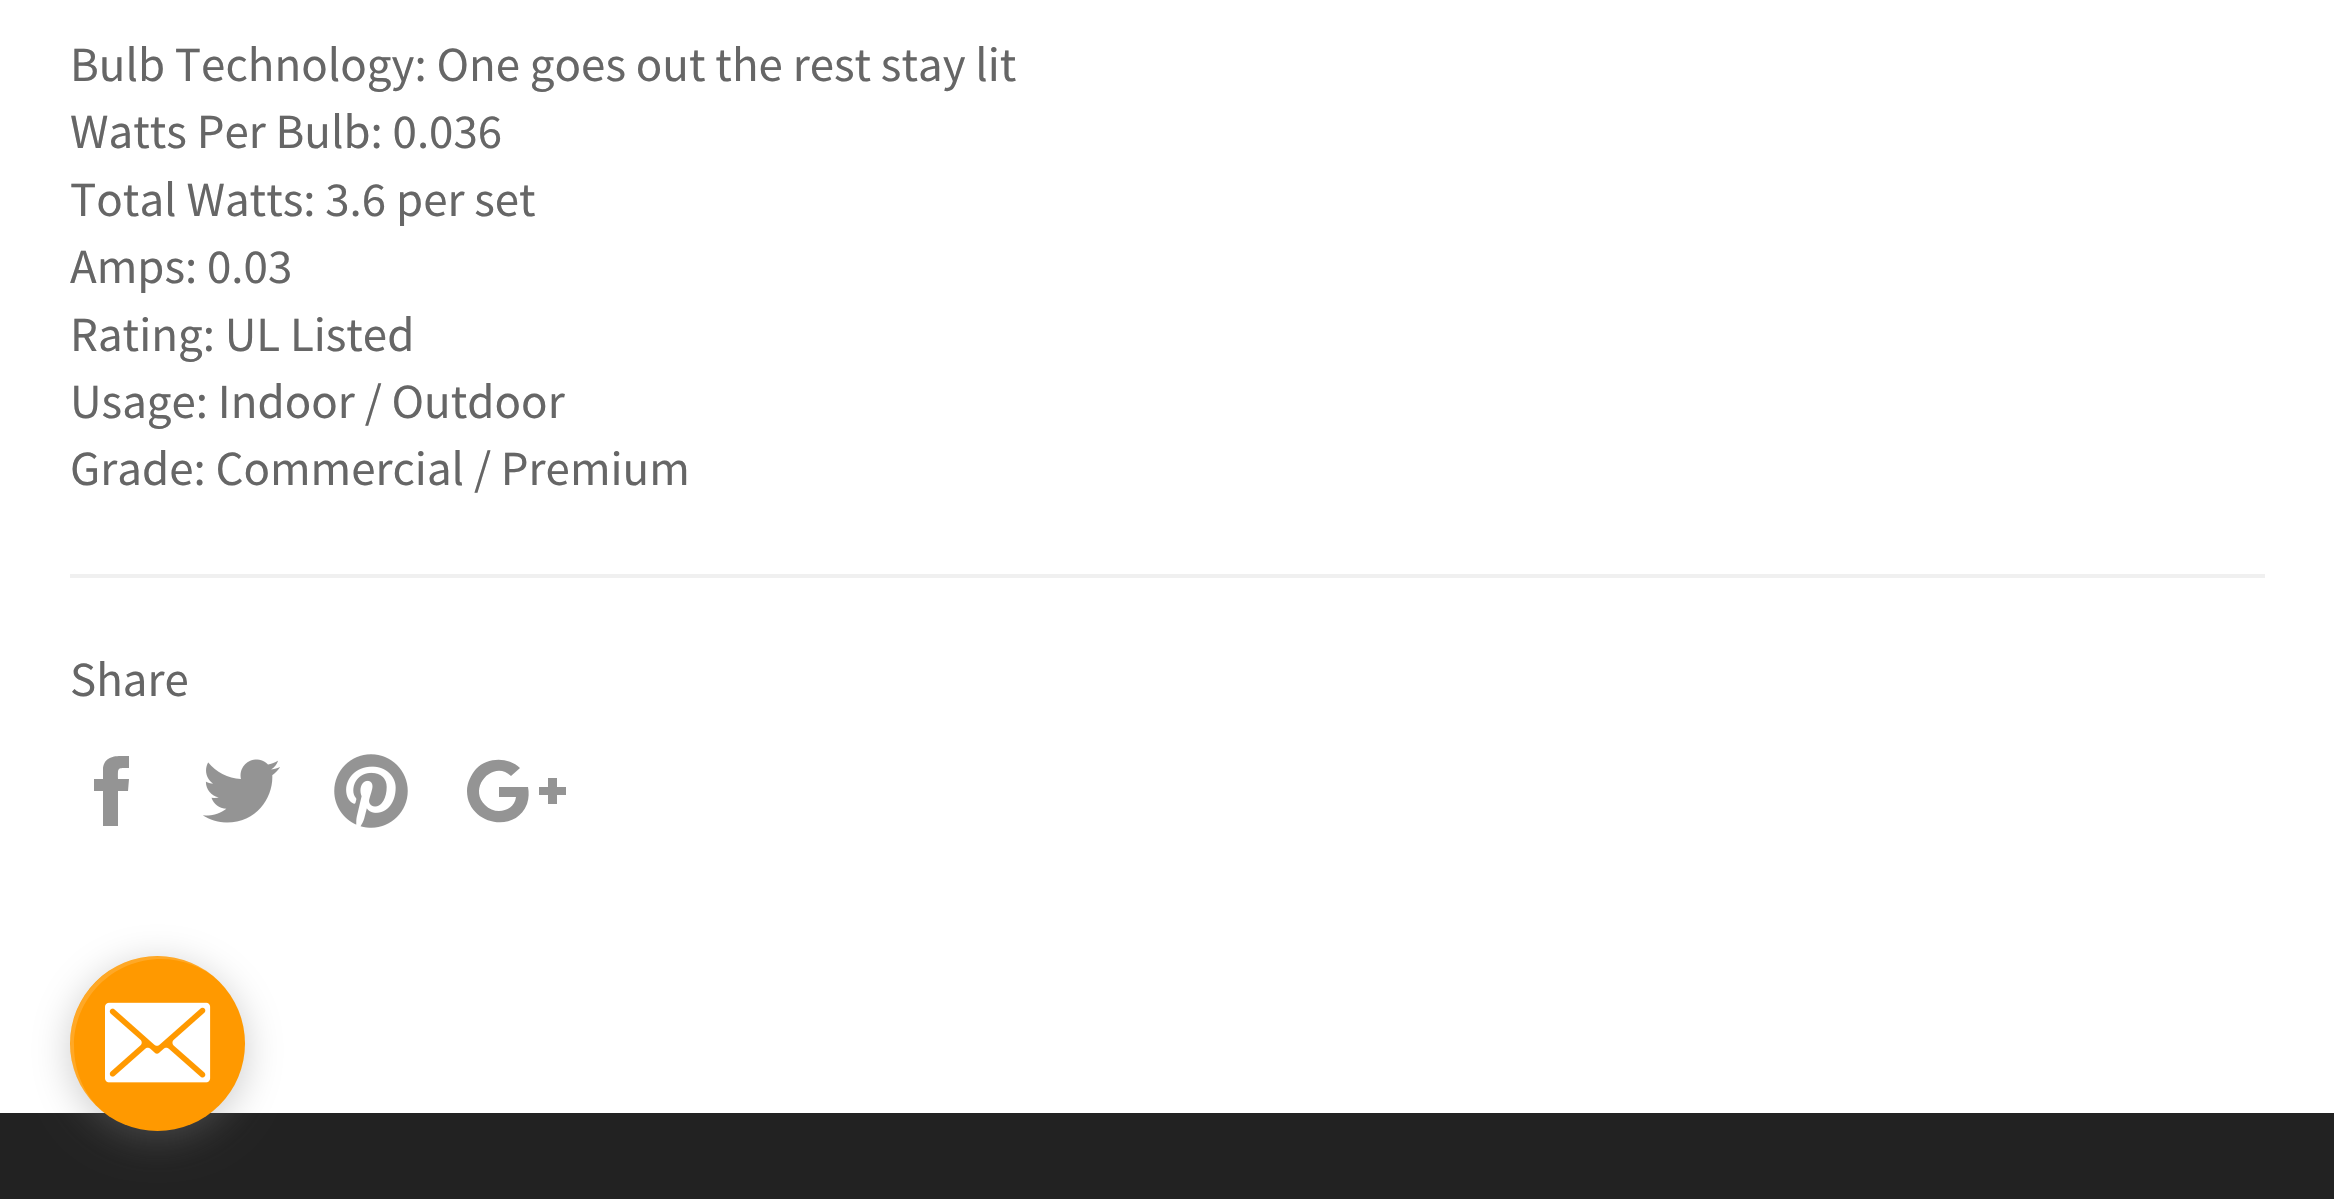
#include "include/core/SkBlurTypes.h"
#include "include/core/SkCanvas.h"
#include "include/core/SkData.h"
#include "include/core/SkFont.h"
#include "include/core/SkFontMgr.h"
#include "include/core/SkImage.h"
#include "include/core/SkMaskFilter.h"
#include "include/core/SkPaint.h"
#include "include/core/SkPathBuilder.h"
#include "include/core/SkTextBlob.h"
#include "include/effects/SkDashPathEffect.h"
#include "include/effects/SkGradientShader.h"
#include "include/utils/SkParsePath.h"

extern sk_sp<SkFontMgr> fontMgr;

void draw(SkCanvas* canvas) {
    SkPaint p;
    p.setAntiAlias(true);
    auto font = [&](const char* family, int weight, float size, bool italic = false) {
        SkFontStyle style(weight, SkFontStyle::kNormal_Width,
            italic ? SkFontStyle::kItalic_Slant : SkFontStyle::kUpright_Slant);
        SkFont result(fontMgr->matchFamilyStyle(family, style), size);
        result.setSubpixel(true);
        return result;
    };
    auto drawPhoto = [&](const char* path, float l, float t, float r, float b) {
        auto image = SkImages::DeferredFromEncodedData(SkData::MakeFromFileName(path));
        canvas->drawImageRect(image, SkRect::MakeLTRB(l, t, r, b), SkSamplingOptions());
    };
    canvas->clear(0xFFFFFFFF);
    auto font1 = font("Source Sans Pro", 400, 49);
    p.setColor(0xFF666666);
    {
        const struct { const char* s; float x, y; } items[] = {
            {"Bulb Technology: One goes out the rest stay lit", 70, 81},
            {"Watts Per Bulb: 0.036", 70, 148},
            {"Total Watts: 3.6 per set", 70, 216},
            {"Amps: 0.03", 70, 283},
            {"Rating: UL Listed", 70, 351},
            {"Usage: Indoor / Outdoor", 70, 418},
            {"Grade: Commercial / Premium", 70, 485},
        };
        for (auto [s, x, y] : items) {
            canvas->drawString(s, x, y, font1, p);
        }
    }
    p.setColor(0xFFF0F0F0);
    canvas->drawRect(SkRect::MakeLTRB(70, 574, 2265, 578), p);
    p.setColor(0xFF666666);
    canvas->drawString("Share", 70, 696, font1, p);
    p.setColor(0xFF949494);
    canvas->drawPath(SkPathBuilder().moveTo(118, 779).cubicTo(118, 767, 117, 768, 129, 768).lineTo(129, 756).cubicTo(119, 756, 105, 754, 103, 768).lineTo(103, 779).lineTo(94, 779).lineTo(94, 791).lineTo(103, 791).lineTo(103, 826).lineTo(118, 826).lineTo(118, 791).lineTo(128, 791).lineTo(129, 779).close().detach(), p);
    drawPhoto("media/1.png", 203, 759, 280, 823);
    drawPhoto("media/2.png", 334, 754, 408, 828);
    canvas->drawPath(SkPathBuilder().moveTo(499, 787).lineTo(499, 797).lineTo(516, 797).cubicTo(515, 806, 507, 811, 499, 811).cubicTo(494, 811, 489, 809, 485, 805).cubicTo(467, 787, 494, 759, 511, 776).lineTo(520, 768).cubicTo(508, 757, 488, 757, 476, 769).cubicTo(471, 775, 467, 783, 467, 791).cubicTo(467, 824, 515, 835, 527, 804).cubicTo(529, 798, 529, 792, 528, 787).close().moveTo(566, 787).lineTo(557, 787).lineTo(557, 778).lineTo(548, 778).lineTo(548, 787).lineTo(539, 787).lineTo(539, 795).lineTo(548, 795).lineTo(548, 804).lineTo(557, 804).lineTo(557, 795).lineTo(566, 795).close().detach(), p);
    p.setColor(0xFF222222);
    canvas->drawRect(SkRect::MakeLTRB(0, 1113, 2334, 1199), p);
    p.setColor(0x66808080);
    p.setMaskFilter(SkMaskFilter::MakeBlur(kNormal_SkBlurStyle, 19));
    canvas->drawRoundRect(SkRect::MakeLTRB(70, 963, 245, 1138), 87.5f, 87.5f, p);
    p.setMaskFilter(nullptr);
    p.setColor(0xFFFF9900);
    canvas->drawCircle(157.5f, 1043.5f, 87.5f, p);
    p.setColor(0x26FFFFFF);
    canvas->drawPath(SkPathBuilder().moveTo(161, 959).cubicTo(183, 959, 203, 967, 218, 980).cubicTo(184, 948, 129, 948, 96, 982).cubicTo(58, 1020, 63, 1082, 105, 1114).cubicTo(86, 1098, 74, 1073, 74, 1046).cubicTo(74, 998, 113, 959, 161, 959).close().detach(), p);
    drawPhoto("media/3.png", 105, 1002, 211, 1083);
}
